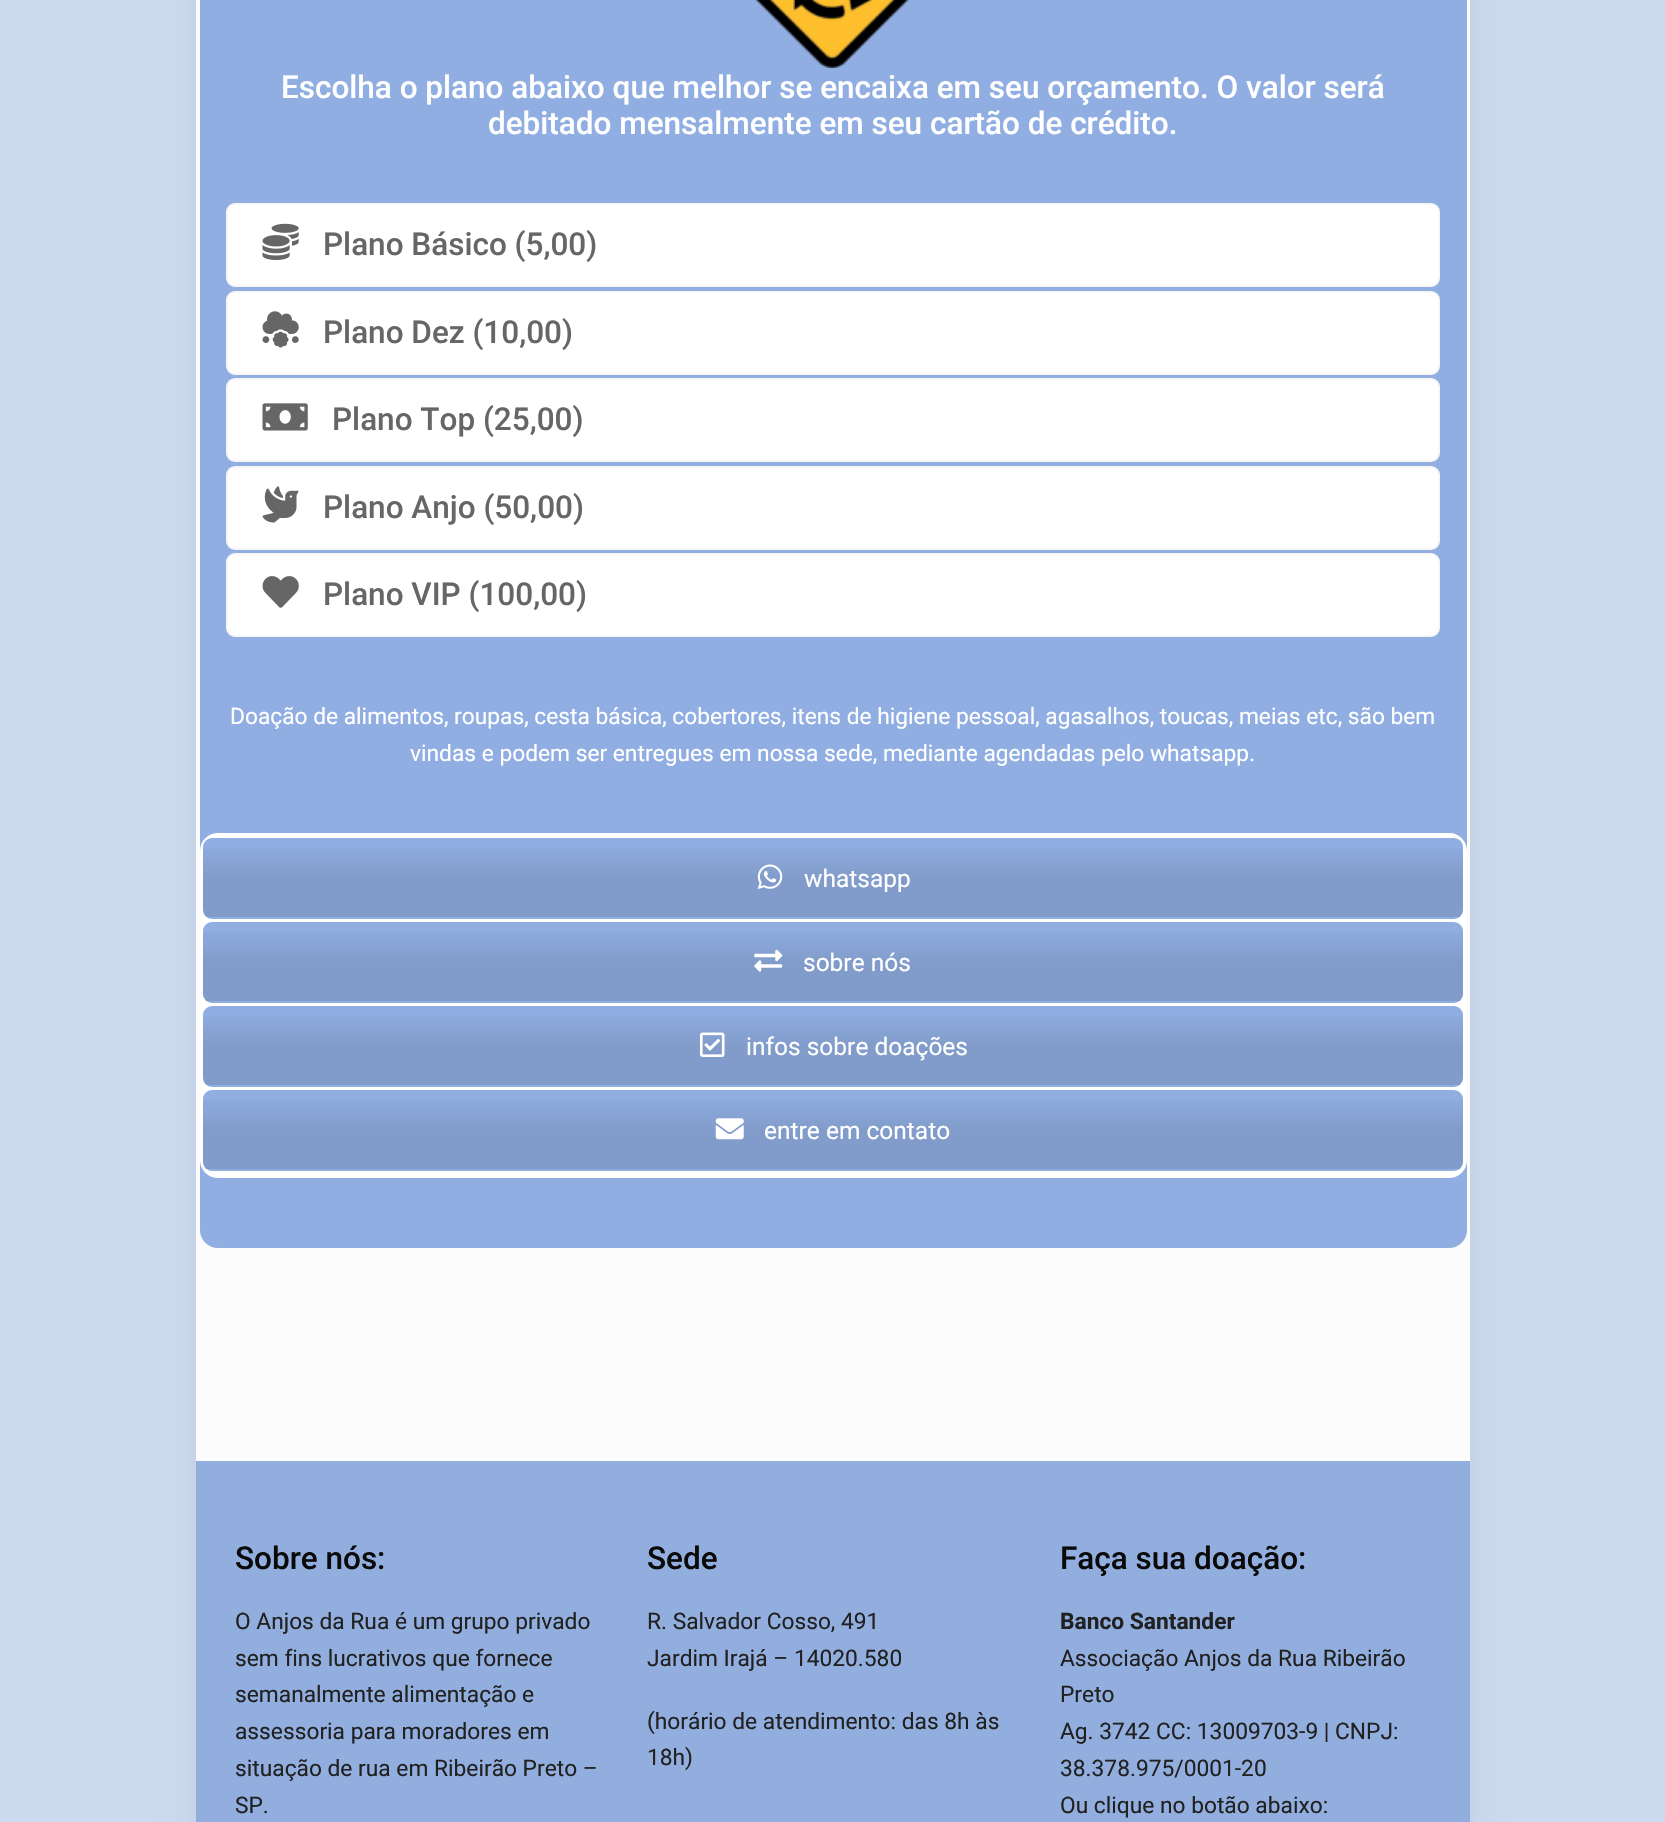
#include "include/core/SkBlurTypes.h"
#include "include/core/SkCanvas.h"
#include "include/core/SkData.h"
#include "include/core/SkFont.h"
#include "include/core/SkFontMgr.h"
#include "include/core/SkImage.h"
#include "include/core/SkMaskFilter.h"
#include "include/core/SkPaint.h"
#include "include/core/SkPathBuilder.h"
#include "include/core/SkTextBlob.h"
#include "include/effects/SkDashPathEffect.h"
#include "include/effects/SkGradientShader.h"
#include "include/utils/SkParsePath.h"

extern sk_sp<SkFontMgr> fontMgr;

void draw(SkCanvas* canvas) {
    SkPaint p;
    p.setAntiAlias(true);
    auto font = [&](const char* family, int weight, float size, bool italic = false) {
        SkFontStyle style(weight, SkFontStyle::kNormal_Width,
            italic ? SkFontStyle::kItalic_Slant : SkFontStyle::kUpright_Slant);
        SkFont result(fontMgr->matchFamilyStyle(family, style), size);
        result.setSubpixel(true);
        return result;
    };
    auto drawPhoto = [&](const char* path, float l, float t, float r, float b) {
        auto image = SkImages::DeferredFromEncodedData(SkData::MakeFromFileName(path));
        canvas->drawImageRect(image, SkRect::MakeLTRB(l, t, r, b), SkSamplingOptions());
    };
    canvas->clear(0xFFCCD9EF);
    p.setColor(0x0F000000);
    p.setMaskFilter(SkMaskFilter::MakeBlur(kNormal_SkBlurStyle, 13));
    canvas->drawRect(SkRect::MakeLTRB(196, -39, 1470, 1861), p);
    p.setMaskFilter(nullptr);
    p.setColor(0xFFFCFCFC);
    canvas->drawRect(SkRect::MakeLTRB(196, 0, 1470, 1461), p);
    p.setColor(0xFF90AEE2);
    canvas->drawRoundRect(SkRect::MakeLTRB(200, -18, 1467, 1248), 18, 18, p);
    drawPhoto("media/1.png", 755, 0, 909, 68);
    auto font1 = font("Roboto", 500, 31.5f);
    p.setColor(0xFFFFFFFF);
    canvas->drawString("Escolha o plano abaixo que melhor se encaixa em seu orçamento. O valor será", 281, 98, font1, p);
    canvas->drawString("debitado mensalmente em seu cartão de crédito.", 488, 134, font1, p);
    canvas->drawRoundRect(SkRect::MakeLTRB(227, 204, 1439, 286), 8, 8, p);
    p.setStyle(SkPaint::kStroke_Style);
    p.setStrokeWidth(2);
    p.setColor(0xFFF7F7F7);
    canvas->drawRoundRect(SkRect::MakeLTRB(227, 204, 1439, 286), 8, 8, p);
    drawPhoto("media/2.png", 262, 223, 299, 260);
    p.setStyle(SkPaint::kFill_Style);
    p.setColor(0xFF666666);
    canvas->drawString("Plano Básico (5,00)", 323, 255, font1, p);
    p.setColor(0xFFFFFFFF);
    canvas->drawRoundRect(SkRect::MakeLTRB(227, 292, 1439, 374), 8, 8, p);
    p.setStyle(SkPaint::kStroke_Style);
    p.setColor(0xFFF7F7F7);
    canvas->drawRoundRect(SkRect::MakeLTRB(227, 292, 1439, 374), 8, 8, p);
    drawPhoto("media/3.png", 262, 311, 299, 348);
    p.setStyle(SkPaint::kFill_Style);
    p.setColor(0xFF666666);
    canvas->drawString("Plano Dez (10,00)", 323, 343, font1, p);
    p.setColor(0xFFFFFFFF);
    canvas->drawRoundRect(SkRect::MakeLTRB(227, 379, 1439, 461), 8, 8, p);
    p.setStyle(SkPaint::kStroke_Style);
    p.setColor(0xFFF7F7F7);
    canvas->drawRoundRect(SkRect::MakeLTRB(227, 379, 1439, 461), 8, 8, p);
    drawPhoto("media/4.png", 262, 403, 308, 431);
    p.setStyle(SkPaint::kFill_Style);
    p.setColor(0xFF666666);
    canvas->drawString("Plano Top (25,00)", 332, 430, font1, p);
    p.setColor(0xFFFFFFFF);
    canvas->drawRoundRect(SkRect::MakeLTRB(227, 467, 1439, 549), 8, 8, p);
    p.setStyle(SkPaint::kStroke_Style);
    p.setColor(0xFFF7F7F7);
    canvas->drawRoundRect(SkRect::MakeLTRB(227, 467, 1439, 549), 8, 8, p);
    drawPhoto("media/5.png", 262, 486, 299, 523);
    p.setStyle(SkPaint::kFill_Style);
    p.setColor(0xFF666666);
    canvas->drawString("Plano Anjo (50,00)", 323, 518, font1, p);
    p.setColor(0xFFFFFFFF);
    canvas->drawRoundRect(SkRect::MakeLTRB(227, 554, 1439, 636), 8, 8, p);
    p.setStyle(SkPaint::kStroke_Style);
    p.setColor(0xFFF7F7F7);
    canvas->drawRoundRect(SkRect::MakeLTRB(227, 554, 1439, 636), 8, 8, p);
    drawPhoto("media/6.png", 262, 576, 299, 608);
    p.setStyle(SkPaint::kFill_Style);
    p.setColor(0xFF666666);
    canvas->drawString("Plano VIP (100,00)", 323, 605, font1, p);
    auto font2 = font("Roboto", 400, 22.75f);
    p.setColor(0xFFFFFFFF);
    canvas->drawString("Doação de alimentos, roupas, cesta básica, cobertores, itens de higiene pessoal, agasalhos, toucas, meias etc, são bem", 230, 724, font2, p);
    canvas->drawString("vindas e podem ser entregues em nossa sede, mediante agendadas pelo whatsapp.", 410, 761, font2, p);
    canvas->drawRoundRect(SkRect::MakeLTRB(200, 833, 1467, 1178), 18, 18, p);
    p.setColor(0xFF90AEE2);
    canvas->drawRoundRect(SkRect::MakeLTRB(203, 838, 1463, 919), 9, 9, p);
    canvas->save();
    canvas->clipPath(SkPathBuilder().moveTo(212, 838).lineTo(1454, 838).cubicTo(1459, 838, 1463, 842, 1463, 847).lineTo(1463, 910).cubicTo(1463, 915, 1459, 919, 1454, 919).lineTo(212, 919).cubicTo(207, 919, 203, 915, 203, 910).lineTo(203, 847).cubicTo(203, 842, 207, 838, 212, 838).close().detach(), true);
    {
        const SkColor colors[] = {0x00000000, 0x1A000000, 0x1A000000};
        const float stops[] = {0, 0.5f, 1};
        const SkPoint ends[] = {{1461, 840}, {1461, 917}};
        p.setShader(SkGradientShader::MakeLinear(ends, colors, stops, 3, SkTileMode::kClamp));
        p.setAlpha(255);
    }
    canvas->drawRect(SkRect::MakeLTRB(203, 848, 1463, 917), p);
    canvas->restore();
    drawPhoto("media/7.png", 757, 864, 783, 889);
    auto font3 = font("Roboto", 400, 24.5f);
    p.setShader(nullptr);
    p.setColor(0xFFFFFFFF);
    canvas->drawString("whatsapp", 804, 887, font3, p);
    p.setColor(0xFF90AEE2);
    canvas->drawRoundRect(SkRect::MakeLTRB(203, 922, 1463, 1003), 9, 9, p);
    canvas->save();
    canvas->clipPath(SkPathBuilder().moveTo(212, 922).lineTo(1454, 922).cubicTo(1459, 922, 1463, 926, 1463, 931).lineTo(1463, 994).cubicTo(1463, 999, 1459, 1003, 1454, 1003).lineTo(212, 1003).cubicTo(207, 1003, 203, 999, 203, 994).lineTo(203, 931).cubicTo(203, 926, 207, 922, 212, 922).close().detach(), true);
    {
        const SkColor colors[] = {0x00000000, 0x1A000000, 0x1A000000};
        const float stops[] = {0, 0.5f, 1};
        const SkPoint ends[] = {{1461, 924}, {1461, 1001}};
        p.setShader(SkGradientShader::MakeLinear(ends, colors, stops, 3, SkTileMode::kClamp));
        p.setAlpha(255);
    }
    canvas->drawRect(SkRect::MakeLTRB(203, 932, 1463, 1001), p);
    canvas->restore();
    drawPhoto("media/8.png", 754, 949, 783, 972);
    p.setShader(nullptr);
    p.setColor(0xFFFFFFFF);
    canvas->drawString("sobre nós", 803, 971, font3, p);
    p.setColor(0xFF90AEE2);
    canvas->drawRoundRect(SkRect::MakeLTRB(203, 1006, 1463, 1087), 9, 9, p);
    canvas->save();
    canvas->clipPath(SkPathBuilder().moveTo(212, 1006).lineTo(1454, 1006).cubicTo(1459, 1006, 1463, 1010, 1463, 1015).lineTo(1463, 1078).cubicTo(1463, 1083, 1459, 1087, 1454, 1087).lineTo(212, 1087).cubicTo(207, 1087, 203, 1083, 203, 1078).lineTo(203, 1015).cubicTo(203, 1010, 207, 1006, 212, 1006).close().detach(), true);
    {
        const SkColor colors[] = {0x00000000, 0x1A000000, 0x1A000000};
        const float stops[] = {0, 0.5f, 1};
        const SkPoint ends[] = {{1461, 1008}, {1461, 1085}};
        p.setShader(SkGradientShader::MakeLinear(ends, colors, stops, 3, SkTileMode::kClamp));
        p.setAlpha(255);
    }
    canvas->drawRect(SkRect::MakeLTRB(203, 1016, 1463, 1085), p);
    canvas->restore();
    drawPhoto("media/9.png", 700, 1032, 725, 1057);
    p.setShader(nullptr);
    p.setColor(0xFFFFFFFF);
    canvas->drawString("infos sobre doações", 746, 1055, font3, p);
    p.setColor(0xFF90AEE2);
    canvas->drawRoundRect(SkRect::MakeLTRB(203, 1090, 1463, 1171), 9, 9, p);
    canvas->save();
    canvas->clipPath(SkPathBuilder().moveTo(212, 1090).lineTo(1454, 1090).cubicTo(1459, 1090, 1463, 1094, 1463, 1099).lineTo(1463, 1162).cubicTo(1463, 1167, 1459, 1171, 1454, 1171).lineTo(212, 1171).cubicTo(207, 1171, 203, 1167, 203, 1162).lineTo(203, 1099).cubicTo(203, 1094, 207, 1090, 212, 1090).close().detach(), true);
    {
        const SkColor colors[] = {0x00000000, 0x1A000000, 0x1A000000};
        const float stops[] = {0, 0.5f, 1};
        const SkPoint ends[] = {{1461, 1092}, {1461, 1169}};
        p.setShader(SkGradientShader::MakeLinear(ends, colors, stops, 3, SkTileMode::kClamp));
        p.setAlpha(255);
    }
    canvas->drawRect(SkRect::MakeLTRB(203, 1100, 1463, 1169), p);
    canvas->restore();
    drawPhoto("media/10.png", 715, 1118, 744, 1140);
    p.setShader(nullptr);
    p.setColor(0xFFFFFFFF);
    canvas->drawString("entre em contato", 764, 1139, font3, p);
    p.setColor(0xFF91AEDE);
    canvas->drawRect(SkRect::MakeLTRB(196, 1461, 1470, 1822), p);
    p.setColor(0xFF0A0A0A);
    canvas->drawString("Sobre nós:", 235, 1569, font1, p);
    p.setColor(0xFF212121);
    {
        const struct { const char* s; float x, y; } items[] = {
            {"O Anjos da Rua é um grupo privado", 235, 1629},
            {"sem fins lucrativos que fornece", 235, 1666},
            {"semanalmente alimentação e", 235, 1702},
            {"assessoria para moradores em", 235, 1739},
            {"situação de rua em Ribeirão Preto –", 235, 1776},
            {"SP.", 235, 1813},
        };
        for (auto [s, x, y] : items) {
            canvas->drawString(s, x, y, font2, p);
        }
    }
    p.setColor(0xFF0A0A0A);
    canvas->drawString("Sede", 647, 1569, font1, p);
    p.setColor(0xFF212121);
    {
        const struct { const char* s; float x, y; } items[] = {
            {"R. Salvador Cosso, 491", 647, 1629},
            {"Jardim Irajá – 14020.580", 647, 1666},
            {"(horário de atendimento: das 8h às", 647, 1729},
            {"18h)", 647, 1765},
        };
        for (auto [s, x, y] : items) {
            canvas->drawString(s, x, y, font2, p);
        }
    }
    p.setColor(0xFF0A0A0A);
    canvas->drawString("Faça sua doação:", 1060, 1569, font1, p);
    auto font4 = font("Roboto", 700, 22.75f);
    p.setColor(0xFF212121);
    canvas->drawString("Banco Santander", 1060, 1629, font4, p);
    {
        const struct { const char* s; float x, y; } items[] = {
            {"Associação Anjos da Rua Ribeirão", 1060, 1666},
            {"Preto", 1060, 1702},
            {"Ag. 3742 CC: 13009703-9 | CNPJ:", 1060, 1739},
            {"38.378.975/0001-20", 1060, 1776},
            {"Ou clique no botão abaixo:", 1060, 1813},
        };
        for (auto [s, x, y] : items) {
            canvas->drawString(s, x, y, font2, p);
        }
    }
}
